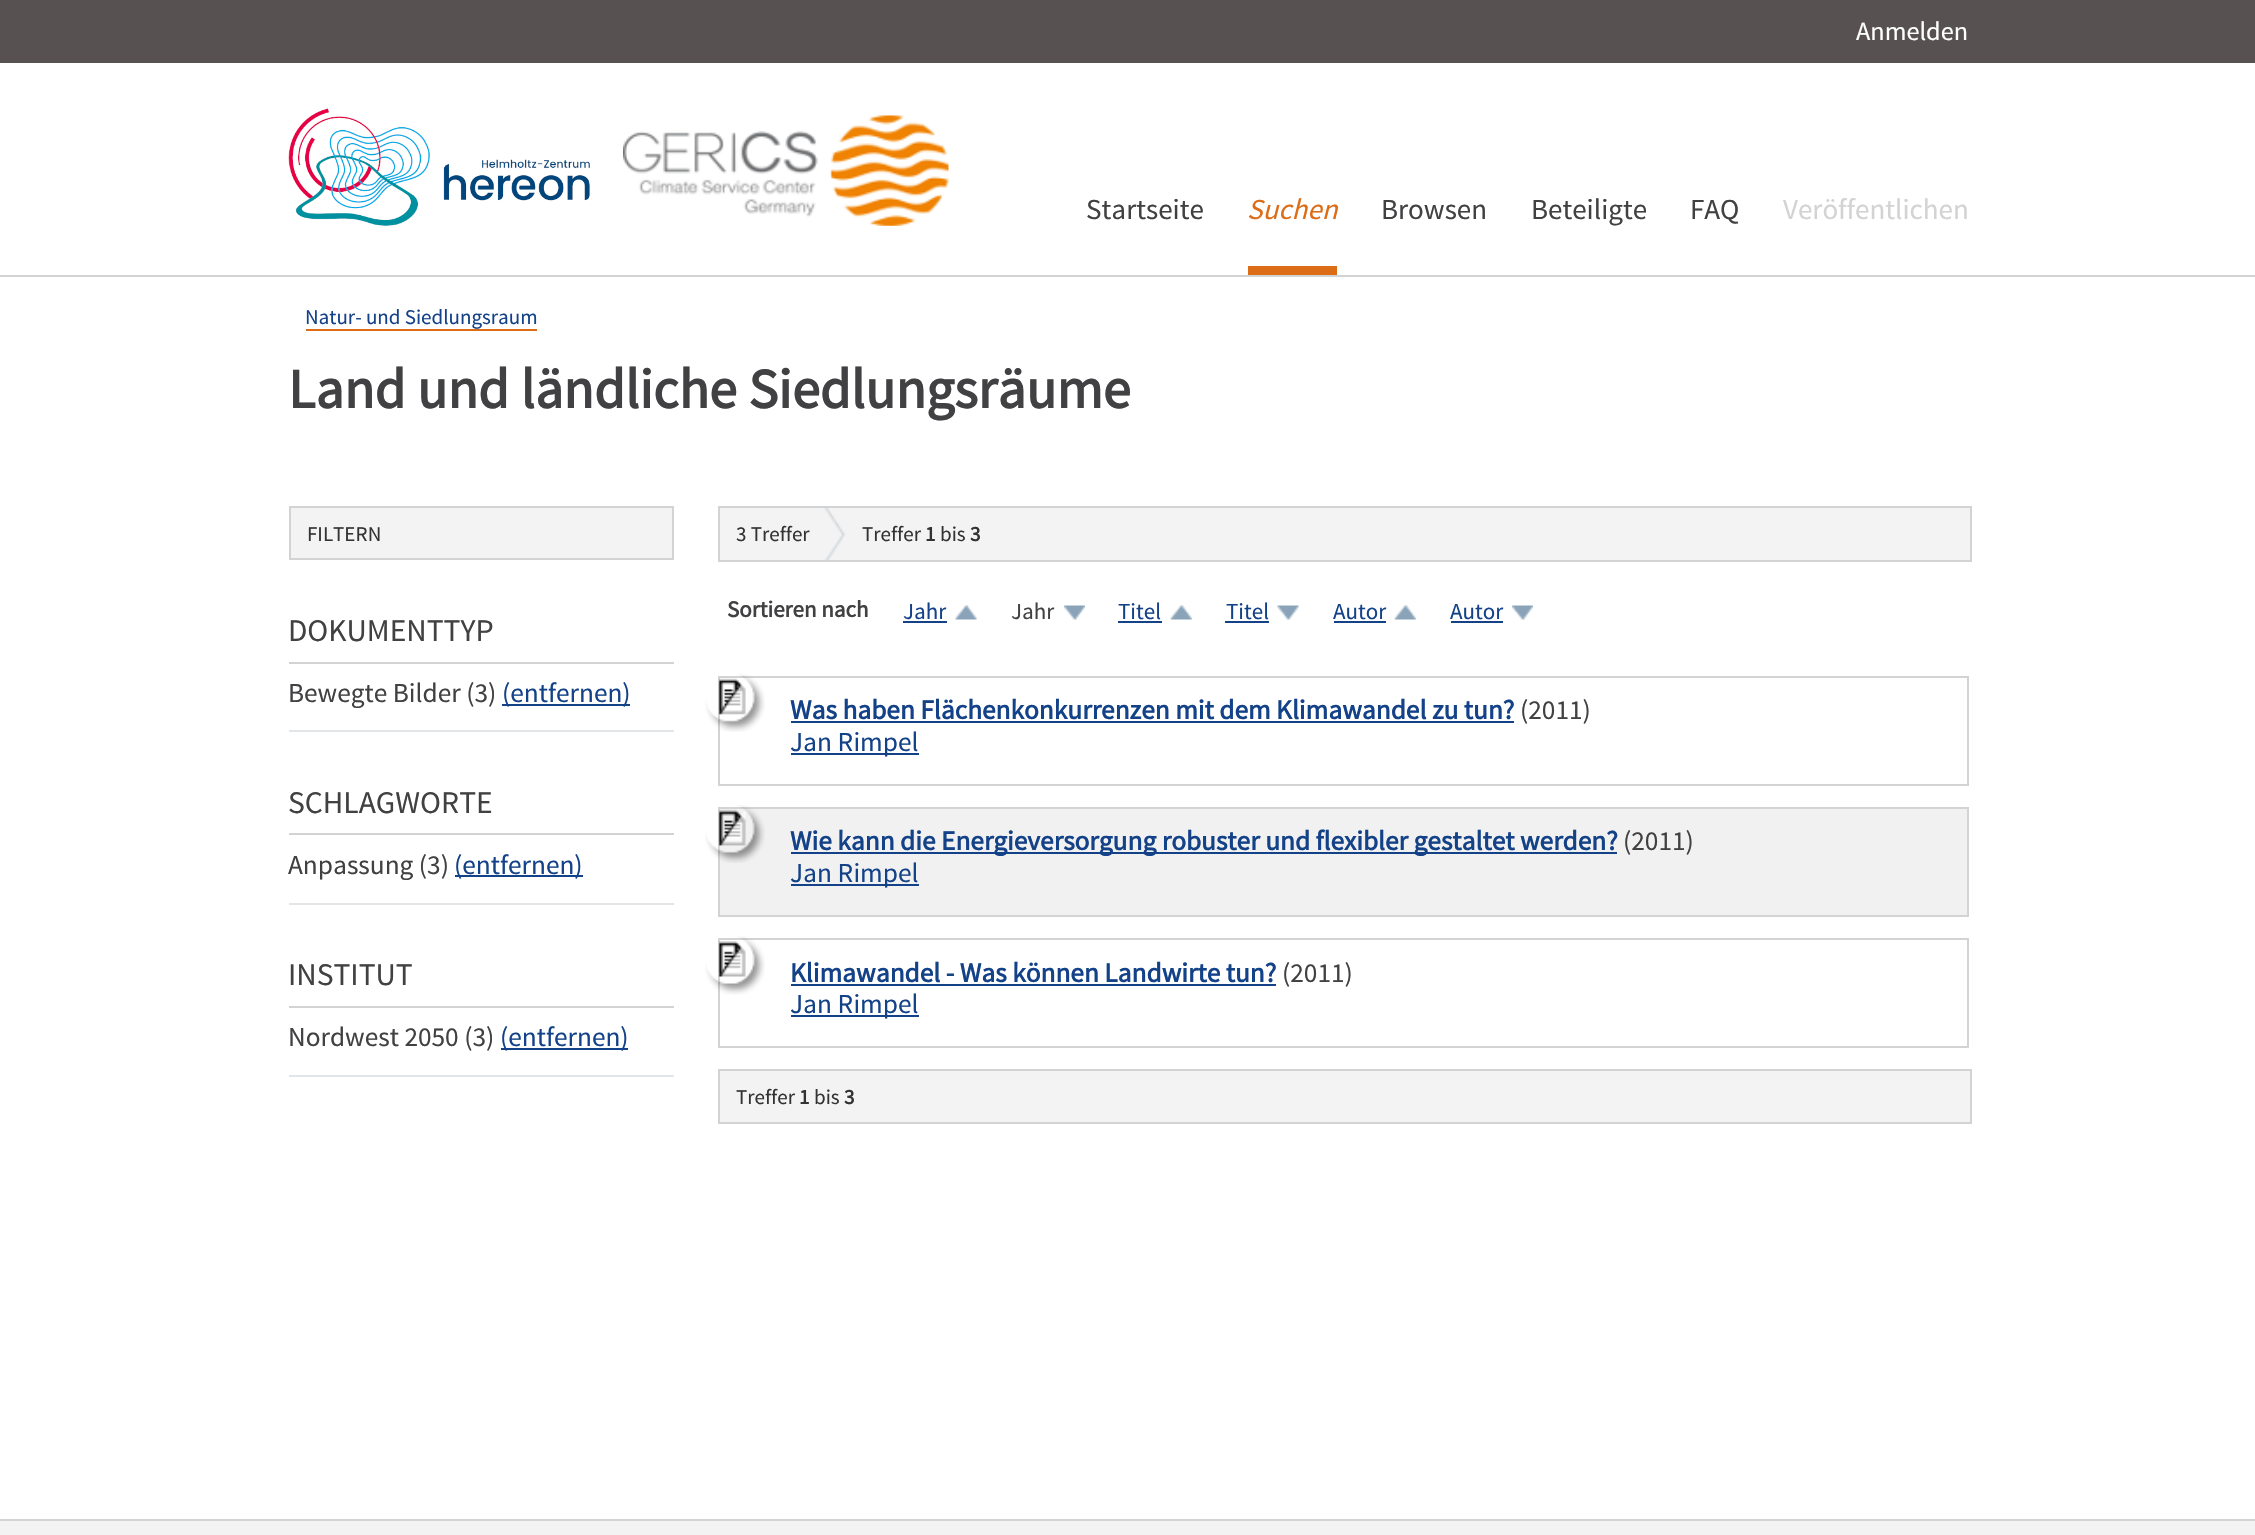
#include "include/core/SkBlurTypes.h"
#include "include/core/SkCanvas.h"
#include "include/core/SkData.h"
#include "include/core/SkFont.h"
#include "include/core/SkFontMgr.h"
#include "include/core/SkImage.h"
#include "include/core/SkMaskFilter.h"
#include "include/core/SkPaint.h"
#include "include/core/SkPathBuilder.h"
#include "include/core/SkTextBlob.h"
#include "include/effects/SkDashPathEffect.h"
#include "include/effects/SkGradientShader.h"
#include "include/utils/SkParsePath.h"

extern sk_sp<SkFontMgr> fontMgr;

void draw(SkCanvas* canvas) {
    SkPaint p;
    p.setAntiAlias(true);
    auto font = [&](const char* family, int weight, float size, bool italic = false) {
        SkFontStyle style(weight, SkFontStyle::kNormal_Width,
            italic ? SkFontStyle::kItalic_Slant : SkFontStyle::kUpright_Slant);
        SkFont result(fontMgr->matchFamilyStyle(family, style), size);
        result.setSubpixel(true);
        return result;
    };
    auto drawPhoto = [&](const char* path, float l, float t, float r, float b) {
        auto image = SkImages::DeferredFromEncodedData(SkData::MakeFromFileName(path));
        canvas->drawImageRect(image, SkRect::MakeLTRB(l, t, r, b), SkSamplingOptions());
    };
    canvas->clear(0xFFFFFFFF);
    p.setColor(0xFF585151);
    canvas->drawRect(SkRect::MakeLTRB(0, 0, 2255, 63), p);
    auto font1 = font("Source Sans Pro", 400, 26.25f);
    p.setColor(0xFFFFFFFF);
    canvas->drawString("Anmelden", 1856, 40, font1, p);
    p.setColor(0xFFD2D3D4);
    canvas->drawRect(SkRect::MakeLTRB(0, 275, 2255, 277), p);
    drawPhoto("media/1.png", 288, 108, 590, 226);
    drawPhoto("media/2.png", 623, 115, 949, 226);
    auto font2 = font("Source Sans Pro", 400, 29);
    p.setColor(0xFF414042);
    canvas->drawString("Startseite", 1086, 219, font2, p);
    p.setColor(0xFFDD6C16);
    canvas->drawRect(SkRect::MakeLTRB(1248, 266, 1337, 275), p);
    auto font3 = font("Source Sans Pro", 400, 29, true);
    canvas->drawString("Suchen", 1247, 219, font3, p);
    p.setColor(0xFF414042);
    {
        const struct { const char* s; float x, y; } items[] = {
            {"Browsen", 1381, 219},
            {"Beteiligte", 1531, 219},
            {"FAQ", 1690, 219},
        };
        for (auto [s, x, y] : items) {
            canvas->drawString(s, x, y, font2, p);
        }
    }
    p.setColor(0xFFD3D3D3);
    canvas->drawString("Veröffentlichen", 1783, 219, font2, p);
    auto font4 = font("Source Sans Pro", 400, 21);
    p.setColor(0xFF144288);
    canvas->drawString("Natur- und Siedlungsraum", 305, 324, font4, p);
    p.setColor(0xFFDD6C16);
    canvas->drawRect(SkRect::MakeLTRB(306, 329, 537, 331), p);
    auto font5 = font("Source Sans Pro", 700, 56);
    p.setColor(0xFF414042);
    canvas->drawString("Land und ländliche Siedlungsräume", 288, 408, font5, p);
    p.setColor(0xFFF3F3F3);
    canvas->drawRect(SkRect::MakeLTRB(290, 507, 673, 559), p);
    p.setStyle(SkPaint::kStroke_Style);
    p.setStrokeWidth(2);
    p.setColor(0xFFD2D3D4);
    canvas->drawRect(SkRect::MakeLTRB(290, 507, 673, 559), p);
    p.setStyle(SkPaint::kFill_Style);
    p.setColor(0xFF333333);
    canvas->drawString("FILTERN", 307, 541, font4, p);
    p.setColor(0xFFE2E6E9);
    canvas->drawRect(SkRect::MakeLTRB(289, 730, 674, 732), p);
    p.setColor(0xFFD2D3D4);
    canvas->drawRect(SkRect::MakeLTRB(289, 662, 674, 664), p);
    auto font6 = font("Source Sans Pro", 400, 31.5f);
    p.setColor(0xFF414042);
    canvas->drawString("DOKUMENTTYP", 288, 641, font6, p);
    auto font7 = font("Source Sans Pro", 400, 27.3f);
    canvas->drawString("Bewegte Bilder (3)", 288, 702, font7, p);
    p.setColor(0xFF144288);
    canvas->drawRect(SkRect::MakeLTRB(502, 704, 630, 706), p);
    canvas->drawString("(entfernen)", 502, 702, font7, p);
    p.setColor(0xFFE2E6E9);
    canvas->drawRect(SkRect::MakeLTRB(289, 903, 674, 905), p);
    p.setColor(0xFFD2D3D4);
    canvas->drawRect(SkRect::MakeLTRB(289, 833, 674, 835), p);
    p.setColor(0xFF414042);
    canvas->drawString("SCHLAGWORTE", 288, 813, font6, p);
    canvas->drawString("Anpassung (3)", 288, 874, font7, p);
    p.setColor(0xFF144288);
    canvas->drawRect(SkRect::MakeLTRB(455, 875, 583, 877), p);
    canvas->drawString("(entfernen)", 454, 874, font7, p);
    p.setColor(0xFFE2E6E9);
    canvas->drawRect(SkRect::MakeLTRB(289, 1075, 674, 1077), p);
    p.setColor(0xFFD2D3D4);
    canvas->drawRect(SkRect::MakeLTRB(289, 1006, 674, 1008), p);
    p.setColor(0xFF414042);
    canvas->drawString("INSTITUT", 288, 985, font6, p);
    canvas->drawString("Nordwest 2050 (3)", 288, 1046, font7, p);
    p.setColor(0xFF144288);
    canvas->drawRect(SkRect::MakeLTRB(501, 1048, 628, 1050), p);
    canvas->drawString("(entfernen)", 500, 1046, font7, p);
    p.setColor(0xFFF3F3F3);
    canvas->drawRect(SkRect::MakeLTRB(719, 507, 1971, 561), p);
    p.setStyle(SkPaint::kStroke_Style);
    p.setColor(0xFFD2D3D4);
    canvas->drawRect(SkRect::MakeLTRB(719, 507, 1971, 561), p);
    drawPhoto("media/3.png", 824, 508, 846, 560);
    p.setStyle(SkPaint::kFill_Style);
    p.setColor(0xFF333333);
    canvas->drawString("3 Treffer", 736, 541, font4, p);
    canvas->drawString("Treffer", 862, 541, font4, p);
    auto font8 = font("Source Sans Pro", 700, 21);
    canvas->drawString("1", 925, 541, font8, p);
    canvas->drawString("bis", 940, 541, font4, p);
    canvas->drawString("3", 970, 541, font8, p);
    auto font9 = font("Source Sans Pro", 700, 23);
    p.setColor(0xFF414042);
    canvas->drawString("Sortieren nach", 727, 617, font9, p);
    drawPhoto("media/4.png", 955, 605, 977, 620);
    auto font10 = font("Source Sans Pro", 400, 23);
    p.setColor(0xFF144288);
    canvas->drawString("Jahr", 903, 619, font10, p);
    canvas->drawRect(SkRect::MakeLTRB(903, 621, 947, 623), p);
    drawPhoto("media/5.png", 1064, 605, 1085, 620);
    p.setColor(0xFF414042);
    canvas->drawString("Jahr", 1011, 619, font10, p);
    drawPhoto("media/6.png", 1170, 605, 1192, 620);
    p.setColor(0xFF144288);
    canvas->drawString("Titel", 1118, 619, font10, p);
    canvas->drawRect(SkRect::MakeLTRB(1118, 621, 1162, 623), p);
    drawPhoto("media/7.png", 1277, 605, 1299, 620);
    canvas->drawString("Titel", 1226, 619, font10, p);
    canvas->drawRect(SkRect::MakeLTRB(1225, 621, 1269, 623), p);
    drawPhoto("media/8.png", 1394, 605, 1416, 620);
    canvas->drawString("Autor", 1333, 619, font10, p);
    canvas->drawRect(SkRect::MakeLTRB(1334, 621, 1386, 623), p);
    drawPhoto("media/9.png", 1512, 605, 1533, 620);
    canvas->drawString("Autor", 1450, 619, font10, p);
    canvas->drawRect(SkRect::MakeLTRB(1451, 621, 1503, 623), p);
    p.setStyle(SkPaint::kStroke_Style);
    p.setColor(0xFFD2D3D4);
    canvas->drawRect(SkRect::MakeLTRB(719, 677, 1968, 785), p);
    drawPhoto("media/10.png", 705, 674, 765, 732);
    auto font11 = font("Source Sans Pro", 700, 27.3f);
    p.setStyle(SkPaint::kFill_Style);
    p.setColor(0xFF144288);
    canvas->drawString("Was haben Flächenkonkurrenzen mit dem Klimawandel zu tun?", 790, 719, font11, p);
    canvas->drawRect(SkRect::MakeLTRB(791, 721, 1514, 723), p);
    p.setColor(0xFF414042);
    canvas->drawString("(2011)", 1520, 719, font7, p);
    p.setColor(0xFF144288);
    canvas->drawRect(SkRect::MakeLTRB(791, 753, 919, 755), p);
    canvas->drawString("Jan Rimpel", 790, 751, font7, p);
    p.setColor(0xFFF1F1F1);
    canvas->drawRect(SkRect::MakeLTRB(719, 808, 1968, 916), p);
    p.setStyle(SkPaint::kStroke_Style);
    p.setColor(0xFFD2D3D4);
    canvas->drawRect(SkRect::MakeLTRB(719, 808, 1968, 916), p);
    drawPhoto("media/11.png", 705, 805, 765, 863);
    p.setStyle(SkPaint::kFill_Style);
    p.setColor(0xFF144288);
    canvas->drawRect(SkRect::MakeLTRB(791, 852, 1617, 854), p);
    canvas->drawString("Wie kann die Energieversorgung robuster und flexibler gestaltet werden?", 790, 850, font11, p);
    p.setColor(0xFF414042);
    canvas->drawString("(2011)", 1623, 850, font7, p);
    p.setColor(0xFF144288);
    canvas->drawRect(SkRect::MakeLTRB(791, 884, 919, 886), p);
    canvas->drawString("Jan Rimpel", 790, 882, font7, p);
    p.setStyle(SkPaint::kStroke_Style);
    p.setColor(0xFFD2D3D4);
    canvas->drawRect(SkRect::MakeLTRB(719, 939, 1968, 1047), p);
    drawPhoto("media/12.png", 705, 936, 765, 995);
    p.setStyle(SkPaint::kFill_Style);
    p.setColor(0xFF144288);
    canvas->drawString("Klimawandel - Was können Landwirte tun?", 790, 982, font11, p);
    canvas->drawRect(SkRect::MakeLTRB(791, 984, 1276, 986), p);
    p.setColor(0xFF414042);
    canvas->drawString("(2011)", 1282, 982, font7, p);
    p.setColor(0xFF144288);
    canvas->drawRect(SkRect::MakeLTRB(791, 1015, 919, 1017), p);
    canvas->drawString("Jan Rimpel", 790, 1013, font7, p);
    p.setColor(0xFFF3F3F3);
    canvas->drawRect(SkRect::MakeLTRB(719, 1070, 1971, 1123), p);
    p.setStyle(SkPaint::kStroke_Style);
    p.setColor(0xFFD2D3D4);
    canvas->drawRect(SkRect::MakeLTRB(719, 1070, 1971, 1123), p);
    p.setStyle(SkPaint::kFill_Style);
    p.setColor(0xFF333333);
    canvas->drawString("Treffer", 736, 1104, font4, p);
    canvas->drawString("1", 799, 1104, font8, p);
    canvas->drawString("bis", 814, 1104, font4, p);
    canvas->drawString("3", 844, 1104, font8, p);
    p.setColor(0xFFF3F3F3);
    canvas->drawRect(SkRect::MakeLTRB(0, 1521, 2255, 1535), p);
    p.setColor(0xFFD2D3D4);
    canvas->drawRect(SkRect::MakeLTRB(0, 1519, 2255, 1521), p);
}
